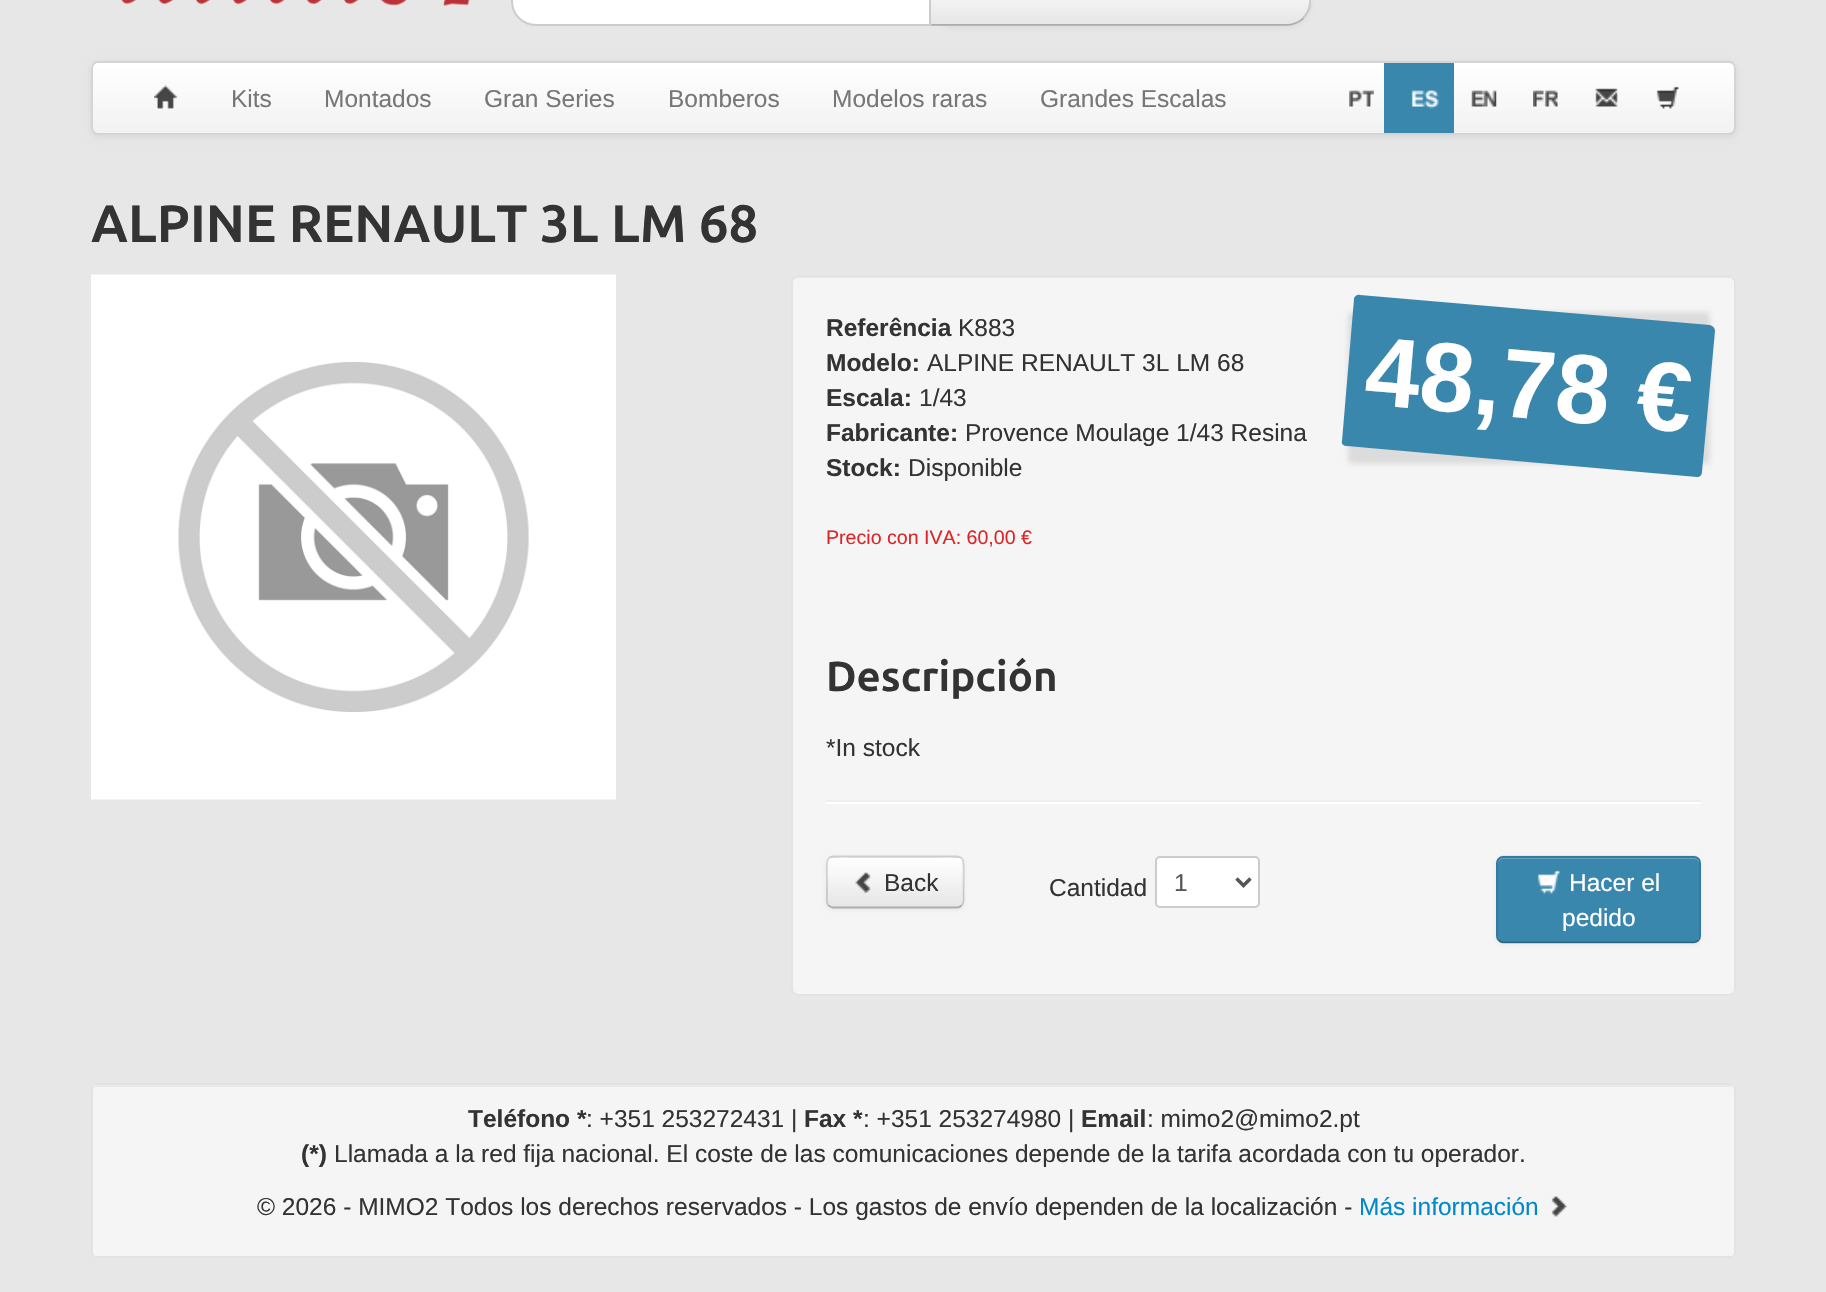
#include "include/core/SkBlurTypes.h"
#include "include/core/SkCanvas.h"
#include "include/core/SkData.h"
#include "include/core/SkFont.h"
#include "include/core/SkFontMgr.h"
#include "include/core/SkImage.h"
#include "include/core/SkMaskFilter.h"
#include "include/core/SkPaint.h"
#include "include/core/SkPathBuilder.h"
#include "include/core/SkTextBlob.h"
#include "include/effects/SkDashPathEffect.h"
#include "include/effects/SkGradientShader.h"
#include "include/utils/SkParsePath.h"

extern sk_sp<SkFontMgr> fontMgr;

void draw(SkCanvas* canvas) {
    SkPaint p;
    p.setAntiAlias(true);
    auto font = [&](const char* family, int weight, float size, bool italic = false) {
        SkFontStyle style(weight, SkFontStyle::kNormal_Width,
            italic ? SkFontStyle::kItalic_Slant : SkFontStyle::kUpright_Slant);
        SkFont result(fontMgr->matchFamilyStyle(family, style), size);
        result.setSubpixel(true);
        return result;
    };
    auto drawPhoto = [&](const char* path, float l, float t, float r, float b) {
        auto image = SkImages::DeferredFromEncodedData(SkData::MakeFromFileName(path));
        canvas->drawImageRect(image, SkRect::MakeLTRB(l, t, r, b), SkSamplingOptions());
    };
    canvas->clear(0xFFE7E7E7);
    drawPhoto("media/1.png", 121, 0, 470, 6);
    p.setColor(0x0D000000);
    p.setMaskFilter(SkMaskFilter::MakeBlur(kNormal_SkBlurStyle, 2));
    canvas->drawRoundRect(SkRect::MakeLTRB(929, -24, 1311, 28), 25, 25, p);
    p.setMaskFilter(nullptr);
    p.setColor(0xFFF5F5F5);
    canvas->drawPath(SkPathBuilder().moveTo(929, -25).lineTo(1286, -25).cubicTo(1300, -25, 1311, -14, 1311, 0).lineTo(1311, 1).cubicTo(1311, 15, 1300, 26, 1286, 26).lineTo(929, 26).close().detach(), p);
    canvas->save();
    canvas->clipPath(SkPathBuilder().moveTo(929, -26).lineTo(1286, -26).cubicTo(1300, -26, 1311, -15, 1311, -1).lineTo(1311, 1).cubicTo(1311, 15, 1300, 26, 1286, 26).lineTo(929, 26).close().detach(), true);
    {
        const SkColor colors[] = {0xFFFFFFFF, 0xFFE6E6E6};
        const float stops[] = {0, 1};
        const SkPoint ends[] = {{1120, -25}, {1120, 25}};
        p.setShader(SkGradientShader::MakeLinear(ends, colors, stops, 2, SkTileMode::kClamp));
        p.setAlpha(255);
    }
    canvas->drawRect(SkRect::MakeLTRB(931, 0, 1311, 25), p);
    canvas->restore();
    p.setShader(nullptr);
    p.setColor(0x26000000);
    canvas->drawPath(SkPathBuilder().moveTo(1303.5f, -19).cubicTo(1307.5f, -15.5f, 1310, -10.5f, 1311, -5.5f).lineTo(1311, 5.5f).cubicTo(1310, 10.5f, 1307.5f, 15.5f, 1303.5f, 19).lineTo(1302, 17.5f).cubicTo(1311.5f, 9, 1311.5f, -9, 1302, -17.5f).close().detach(), p);
    p.setColor(0x40000000);
    canvas->drawPath(SkPathBuilder().moveTo(1304, 19).cubicTo(1299, 23, 1293, 26, 1286, 26).lineTo(930, 26).lineTo(932, 24).lineTo(1286, 24).cubicTo(1292, 24, 1298, 22, 1302, 18).close().detach(), p);
    p.setColor(0x26000000);
    canvas->drawPath(SkPathBuilder().moveTo(931, -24).lineTo(931, 24).lineTo(932, 24).lineTo(929, 26).lineTo(929, -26).lineTo(932, -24).close().detach(), p);
    p.setColor(0xFFFFFFFF);
    canvas->drawPath(SkPathBuilder().moveTo(536, -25).lineTo(930, -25).lineTo(930, 25).lineTo(536, 25).cubicTo(522.5f, 25, 512, 14.5f, 512, 1).lineTo(512, -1).cubicTo(512, -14.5f, 522.5f, -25, 536, -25).close().detach(), p);
    p.setStyle(SkPaint::kStroke_Style);
    p.setStrokeWidth(2);
    p.setColor(0xFFCCCCCC);
    canvas->drawPath(SkPathBuilder().moveTo(536, -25).lineTo(930, -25).lineTo(930, 25).lineTo(536, 25).cubicTo(522.5f, 25, 512, 14.5f, 512, 1).lineTo(512, -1).cubicTo(512, -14.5f, 522.5f, -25, 536, -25).close().detach(), p);
    p.setStyle(SkPaint::kFill_Style);
    p.setColor(0x12000000);
    p.setMaskFilter(SkMaskFilter::MakeBlur(kNormal_SkBlurStyle, 3.5f));
    canvas->drawRoundRect(SkRect::MakeLTRB(91, 63, 1736, 137), 7, 7, p);
    p.setMaskFilter(nullptr);
    canvas->save();
    canvas->clipPath(SkPathBuilder().moveTo(98, 61).lineTo(1729, 61).cubicTo(1733, 61, 1736, 64, 1736, 68).lineTo(1736, 128).cubicTo(1736, 132, 1733, 135, 1729, 135).lineTo(98, 135).cubicTo(94, 135, 91, 132, 91, 128).lineTo(91, 68).cubicTo(91, 64, 94, 61, 98, 61).close().detach(), true);
    {
        const SkColor colors[] = {0xFFFFFFFF, 0xFFF2F2F2};
        const float stops[] = {0, 1};
        const SkPoint ends[] = {{914, 63}, {914, 133}};
        p.setShader(SkGradientShader::MakeLinear(ends, colors, stops, 2, SkTileMode::kClamp));
        p.setAlpha(255);
    }
    canvas->drawRect(SkRect::MakeLTRB(91, 63, 1736, 133), p);
    canvas->restore();
    p.setStyle(SkPaint::kStroke_Style);
    p.setShader(nullptr);
    p.setColor(0xFFD4D4D4);
    canvas->drawRoundRect(SkRect::MakeLTRB(92, 62, 1735, 134), 6, 6, p);
    drawPhoto("media/2.png", 154, 85, 178, 109);
    auto font1 = font("Liberation Sans", 400, 24.5f);
    p.setStyle(SkPaint::kFill_Style);
    p.setColor(0xFF777777);
    {
        const struct { const char* s; float x, y; } items[] = {
            {"Kits", 231, 107},
            {"Montados", 324, 107},
            {"Gran Series", 484, 107},
            {"Bomberos", 668, 107},
            {"Modelos raras", 832, 107},
            {"Grandes Escalas", 1040, 107},
        };
        for (auto [s, x, y] : items) {
            canvas->drawString(s, x, y, font1, p);
        }
    }
    drawPhoto("media/3.png", 1349, 90, 1374, 107);
    p.setColor(0xFF3A87AD);
    canvas->drawRect(SkRect::MakeLTRB(1384, 63, 1454, 133), p);
    drawPhoto("media/4.png", 1411, 90, 1439, 109);
    drawPhoto("media/5.png", 1471, 90, 1497, 107);
    drawPhoto("media/6.png", 1533, 90, 1558, 107);
    drawPhoto("media/7.png", 1595, 88, 1618, 107);
    drawPhoto("media/8.png", 1656, 86, 1679, 109);
    auto font2 = font("Ubuntu", 700, 52.5f);
    p.setColor(0xFF333333);
    canvas->drawString("ALPINE RENAULT 3L LM 68", 91, 242, font2, p);
    drawPhoto("media/9.png", 91, 274, 616, 800);
    p.setColor(0xFFF5F5F5);
    canvas->drawRoundRect(SkRect::MakeLTRB(791, 275, 1736, 996), 7, 7, p);
    p.setColor(0xFFE9E9E9);
    canvas->drawPath(SkPathBuilder().moveTo(798, 278).lineTo(1729, 278).cubicTo(1732, 278, 1734, 281, 1734, 284).cubicTo(1734, 281, 1733, 277, 1729, 277).lineTo(798, 277).cubicTo(794, 277, 793, 281, 793, 284).cubicTo(793, 281, 795, 278, 798, 278).close().detach(), p);
    p.setStyle(SkPaint::kStroke_Style);
    p.setColor(0xFFE3E3E3);
    canvas->drawRoundRect(SkRect::MakeLTRB(792, 276, 1735, 995), 6, 6, p);
    auto font3 = font("Liberation Sans", 700, 24.5f);
    p.setStyle(SkPaint::kFill_Style);
    p.setColor(0xFF333333);
    canvas->drawString("Referência", 826, 336, font3, p);
    canvas->drawString("K883", 958, 336, font1, p);
    canvas->drawString("Modelo:", 826, 371, font3, p);
    canvas->drawString("ALPINE RENAULT 3L LM 68", 927, 371, font1, p);
    canvas->drawString("Escala:", 826, 406, font3, p);
    canvas->drawString("1/43", 919, 406, font1, p);
    canvas->drawString("Fabricante:", 826, 441, font3, p);
    canvas->drawString("Provence Moulage 1/43 Resina", 965, 441, font1, p);
    canvas->drawString("Stock:", 826, 476, font3, p);
    canvas->drawString("Disponible", 908, 476, font1, p);
    auto font4 = font("Liberation Sans", 400, 19.6f);
    p.setColor(0xFFDE2426);
    canvas->drawString("Precio con IVA: 60,00 €", 826, 544, font4, p);
    p.setColor(0x1A000000);
    p.setMaskFilter(SkMaskFilter::MakeBlur(kNormal_SkBlurStyle, 2.5f));
    canvas->drawRoundRect(SkRect::MakeLTRB(1348, 312, 1710, 464), 5, 5, p);
    p.setMaskFilter(nullptr);
    p.setColor(0xFF3A87AD);
    canvas->drawPath(SkPathBuilder().moveTo(1360, 295).lineTo(1710, 325).cubicTo(1713, 326, 1715, 328, 1715, 331).lineTo(1702, 472).cubicTo(1702, 475, 1700, 477, 1697, 477).lineTo(1347, 446).cubicTo(1344, 446, 1341, 444, 1342, 441).lineTo(1354, 299).cubicTo(1354, 297, 1357, 294, 1360, 295).close().detach(), p);
    auto font5 = font("Liberation Sans", 700, 98);
    p.setColor(0xFFFFFFFF);
    canvas->save();
    canvas->rotate(5, 1363, 404);
    canvas->drawString("48,78 €", 1363, 404, font5, p);
    canvas->restore();
    auto font6 = font("Ubuntu", 700, 42);
    p.setColor(0xFF333333);
    canvas->drawString("Descripción", 826, 691, font6, p);
    canvas->drawString("*In stock", 826, 756, font1, p);
    p.setColor(0xFFEEEEEE);
    canvas->drawRect(SkRect::MakeLTRB(826, 800, 1701, 802), p);
    p.setColor(0xFFFFFFFF);
    canvas->drawRect(SkRect::MakeLTRB(826, 802, 1701, 804), p);
    p.setColor(0x0D000000);
    p.setMaskFilter(SkMaskFilter::MakeBlur(kNormal_SkBlurStyle, 2));
    canvas->drawRoundRect(SkRect::MakeLTRB(826, 858, 964, 910), 7, 7, p);
    p.setMaskFilter(nullptr);
    canvas->save();
    canvas->clipPath(SkPathBuilder().moveTo(833, 856).lineTo(957, 856).cubicTo(961, 856, 964, 859, 964, 863).lineTo(964, 901).cubicTo(964, 905, 961, 908, 957, 908).lineTo(833, 908).cubicTo(829, 908, 826, 905, 826, 901).lineTo(826, 863).cubicTo(826, 859, 829, 856, 833, 856).close().detach(), true);
    {
        const SkColor colors[] = {0xFFFFFFFF, 0xFFE6E6E6};
        const float stops[] = {0, 1};
        const SkPoint ends[] = {{895, 858}, {895, 907}};
        p.setShader(SkGradientShader::MakeLinear(ends, colors, stops, 2, SkTileMode::kClamp));
        p.setAlpha(255);
    }
    canvas->drawRect(SkRect::MakeLTRB(826, 858, 964, 907), p);
    canvas->restore();
    p.setShader(nullptr);
    p.setColor(0x33FFFFFF);
    canvas->drawPath(SkPathBuilder().moveTo(833, 859).lineTo(957, 859).cubicTo(960, 859, 962, 862, 962, 864).lineTo(962, 903).lineTo(961, 906).cubicTo(962, 905, 963, 903, 963, 902).lineTo(963, 863).cubicTo(963, 860, 961, 858, 958, 858).lineTo(833, 858).cubicTo(830, 858, 828, 860, 828, 863).lineTo(828, 864).cubicTo(828, 862, 830, 859, 833, 859).close().detach(), p);
    p.setStyle(SkPaint::kStroke_Style);
    p.setStrokeWidth(1.8f);
    p.setColor(0x40000000);
    canvas->drawPath(SkPathBuilder().moveTo(961.5f, 905.5f).cubicTo(960.5f, 906.5f, 959, 907.5f, 957, 907.5f).lineTo(833, 907.5f).cubicTo(831.5f, 907.5f, 830, 906.5f, 828.5f, 905.5f).detach(), p);
    p.setColor(0x26000000);
    canvas->drawPath(SkPathBuilder().moveTo(828.5f, 905.5f).cubicTo(826, 903, 827, 898, 827, 895).lineTo(827, 882).cubicTo(827, 852.5f, 823, 856.5f, 853.5f, 856.5f).lineTo(936.5f, 856.5f).cubicTo(967.5f, 856.5f, 963.5f, 852.5f, 963.5f, 882).lineTo(963.5f, 895).cubicTo(963.5f, 898, 964.5f, 903, 961.5f, 905.5f).detach(), p);
    drawPhoto("media/10.png", 855, 872, 871, 894);
    p.setStyle(SkPaint::kFill_Style);
    p.setColor(0xFF333333);
    canvas->drawString("Back", 884, 891, font1, p);
    canvas->drawString("Cantidad", 1049, 896, font1, p);
    p.setColor(0xFFFFFFFF);
    canvas->drawRoundRect(SkRect::MakeLTRB(1156, 857, 1259, 907), 4, 4, p);
    p.setStyle(SkPaint::kStroke_Style);
    p.setStrokeWidth(2);
    p.setColor(0xFFCCCCCC);
    canvas->drawRoundRect(SkRect::MakeLTRB(1156, 857, 1259, 907), 4, 4, p);
    p.setStrokeWidth(3.5f);
    p.setColor(0xFF555555);
    canvas->drawPath(SkPathBuilder().moveTo(1236.5f, 878.5f).lineTo(1243.5f, 885.5f).lineTo(1250.5f, 878.5f).detach(), p);
    p.setStyle(SkPaint::kFill_Style);
    canvas->drawString("1", 1174, 891, font1, p);
    p.setColor(0x0D000000);
    p.setMaskFilter(SkMaskFilter::MakeBlur(kNormal_SkBlurStyle, 2));
    canvas->drawRoundRect(SkRect::MakeLTRB(1496, 858, 1701, 945), 7, 7, p);
    p.setMaskFilter(nullptr);
    p.setColor(0xFF3A87AD);
    canvas->drawRoundRect(SkRect::MakeLTRB(1496, 856, 1701, 943), 7, 7, p);
    p.setColor(0xFF619FBD);
    canvas->drawPath(SkPathBuilder().moveTo(1503, 859).lineTo(1694, 859).cubicTo(1697, 859, 1699, 862, 1699, 864).lineTo(1699, 863).cubicTo(1699, 860, 1697, 858, 1694, 858).lineTo(1503, 858).cubicTo(1500, 858, 1498, 860, 1498, 863).lineTo(1498, 864).cubicTo(1498, 862, 1500, 859, 1503, 859).close().detach(), p);
    p.setStyle(SkPaint::kStroke_Style);
    p.setStrokeWidth(1.8f);
    p.setColor(0x40000000);
    canvas->drawPath(SkPathBuilder().moveTo(1698.5f, 940.5f).cubicTo(1697, 941.5f, 1695.5f, 942.5f, 1694, 942.5f).lineTo(1503, 942.5f).cubicTo(1501.5f, 942.5f, 1500, 941.5f, 1499, 940.5f).detach(), p);
    p.setColor(0x1A000000);
    canvas->drawPath(SkPathBuilder().moveTo(1499, 940.5f).cubicTo(1498, 939.5f, 1497, 938, 1497, 936).lineTo(1497, 863).cubicTo(1497, 861, 1498, 859.5f, 1499, 858.5f).cubicTo(1500, 857.5f, 1501.5f, 856.5f, 1503, 856.5f).lineTo(1694, 856.5f).cubicTo(1695.5f, 856.5f, 1697, 857.5f, 1698.5f, 858.5f).cubicTo(1699.5f, 859.5f, 1700, 861, 1700, 863).lineTo(1700, 936).cubicTo(1700, 938, 1699.5f, 939.5f, 1698.5f, 940.5f).detach(), p);
    drawPhoto("media/11.png", 1537, 870, 1560, 894);
    p.setStyle(SkPaint::kFill_Style);
    p.setColor(0xFFFFFFFF);
    canvas->drawString("Hacer el", 1569, 891, font1, p);
    canvas->drawString("pedido", 1562, 926, font1, p);
    p.setColor(0xFFF5F5F5);
    canvas->drawRoundRect(SkRect::MakeLTRB(91, 1083, 1736, 1258), 5, 5, p);
    p.setColor(0xFFE9E9E9);
    canvas->drawPath(SkPathBuilder().moveTo(96, 1087).lineTo(1731, 1087).cubicTo(1733, 1087, 1734, 1088, 1734, 1090).lineTo(1734, 1089).cubicTo(1734, 1087, 1732, 1085, 1730, 1085).lineTo(97, 1085).cubicTo(95, 1085, 93, 1087, 93, 1089).lineTo(93, 1090).cubicTo(93, 1088, 94, 1087, 96, 1087).close().detach(), p);
    p.setStyle(SkPaint::kStroke_Style);
    p.setStrokeWidth(2);
    p.setColor(0xFFE3E3E3);
    canvas->drawRoundRect(SkRect::MakeLTRB(92, 1084, 1735, 1257), 4, 4, p);
    p.setStyle(SkPaint::kFill_Style);
    p.setColor(0xFF333333);
    canvas->drawString("Teléfono *", 468, 1127, font3, p);
    canvas->drawString(": +351 253272431 |", 586, 1127, font1, p);
    canvas->drawString("Fax *", 804, 1127, font3, p);
    canvas->drawString(": +351 253274980 |", 863, 1127, font1, p);
    canvas->drawString("Email", 1081, 1127, font3, p);
    canvas->drawString(": mimo2@mimo2.pt", 1147, 1127, font1, p);
    canvas->drawString("(*)", 301, 1162, font3, p);
    canvas->drawString("Llamada a la red fija nacional. El coste de las comunicaciones depende de la tarifa acordada con tu operador.", 334, 1162, font1, p);
    canvas->drawString("© 2026 - MIMO2 Todos los derechos reservados - Los gastos de envío dependen de la localización -", 257, 1215, font1, p);
    p.setColor(0xFF0088CC);
    canvas->drawString("Más información", 1359, 1215, font1, p);
    drawPhoto("media/12.png", 1551, 1196, 1567, 1218);
}
